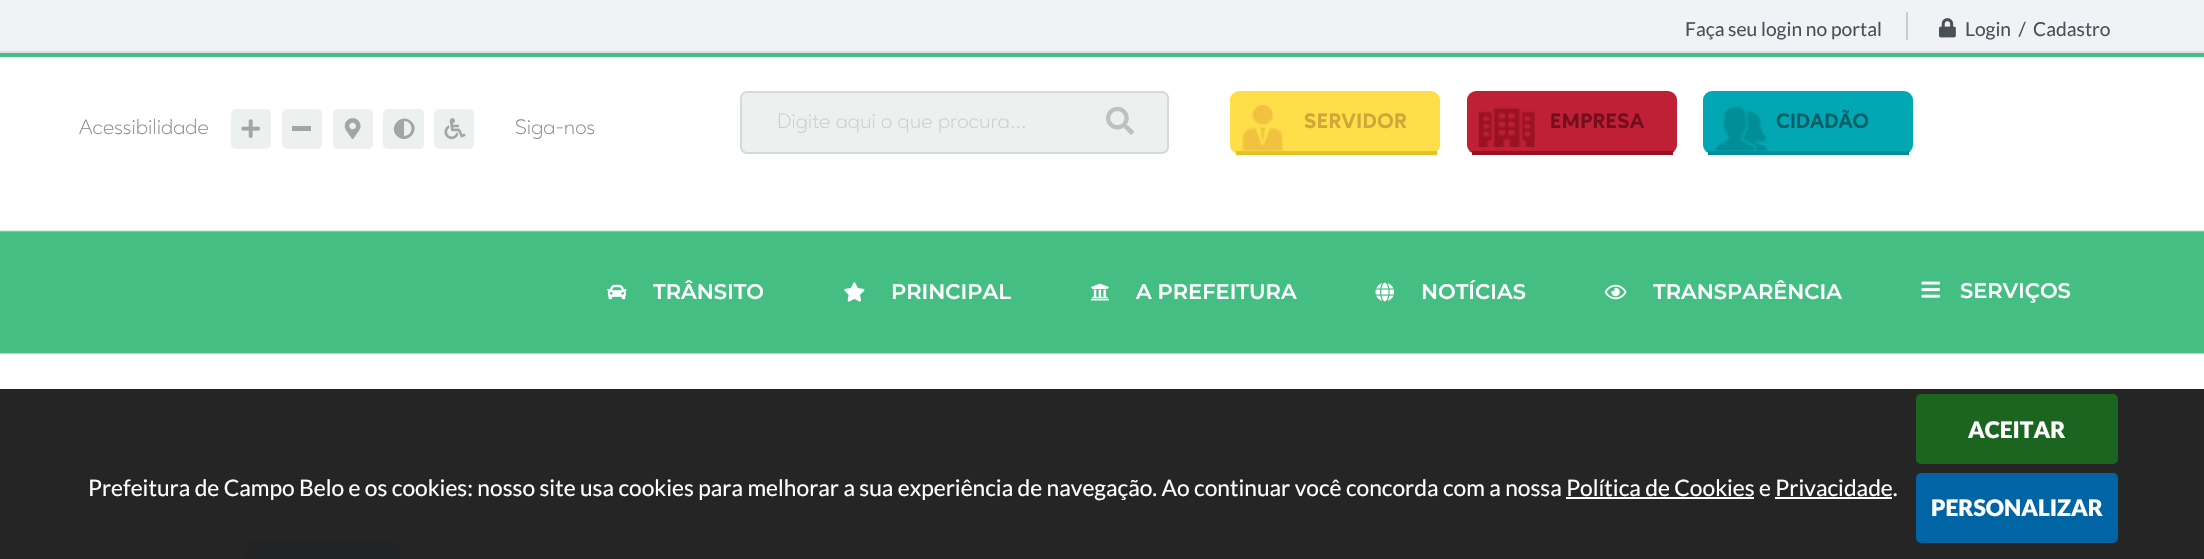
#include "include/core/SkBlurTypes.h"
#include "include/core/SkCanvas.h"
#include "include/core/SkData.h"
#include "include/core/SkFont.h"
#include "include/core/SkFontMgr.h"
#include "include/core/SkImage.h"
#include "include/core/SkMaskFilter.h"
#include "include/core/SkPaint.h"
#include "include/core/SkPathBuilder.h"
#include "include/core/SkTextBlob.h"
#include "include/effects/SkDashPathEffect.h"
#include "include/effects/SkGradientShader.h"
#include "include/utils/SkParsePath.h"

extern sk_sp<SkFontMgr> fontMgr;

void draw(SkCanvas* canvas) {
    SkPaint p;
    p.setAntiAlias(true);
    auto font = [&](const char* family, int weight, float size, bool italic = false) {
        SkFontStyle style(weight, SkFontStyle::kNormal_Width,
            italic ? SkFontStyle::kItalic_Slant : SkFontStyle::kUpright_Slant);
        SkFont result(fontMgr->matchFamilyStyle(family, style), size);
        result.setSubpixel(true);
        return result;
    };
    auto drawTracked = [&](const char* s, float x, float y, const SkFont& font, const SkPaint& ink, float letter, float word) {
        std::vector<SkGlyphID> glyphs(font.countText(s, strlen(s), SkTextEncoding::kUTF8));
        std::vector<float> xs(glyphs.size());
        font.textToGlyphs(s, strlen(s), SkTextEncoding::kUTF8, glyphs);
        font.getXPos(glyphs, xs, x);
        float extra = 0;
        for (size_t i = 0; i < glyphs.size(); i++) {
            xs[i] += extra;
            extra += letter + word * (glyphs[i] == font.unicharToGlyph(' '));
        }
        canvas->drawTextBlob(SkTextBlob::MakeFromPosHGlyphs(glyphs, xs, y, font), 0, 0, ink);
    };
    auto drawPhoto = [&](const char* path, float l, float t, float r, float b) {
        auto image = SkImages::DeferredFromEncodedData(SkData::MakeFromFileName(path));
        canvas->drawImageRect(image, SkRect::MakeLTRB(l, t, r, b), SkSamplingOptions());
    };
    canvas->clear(0xFFFFFFFF);
    {
        const struct { float l, t, r, b; SkColor color; } items[] = {
            {0, 389, 2204, 559, 0xFF252525},
            {0, 0, 2204, 51, 0xFFF0F2F5},
            {0, 51, 2204, 53, 0xFFDDE1E5},
        };
        for (auto [l, t, r, b, color] : items) {
            p.setColor(color);
            canvas->drawRect(SkRect::MakeLTRB(l, t, r, b), p);
        }
    }
    auto font1 = font("Lato", 400, 19.25f);
    p.setColor(0xFF495156);
    canvas->drawString("Faça seu login no portal", 1685, 36, font1, p);
    p.setColor(0xFFC4CACF);
    canvas->drawRoundRect(SkRect::MakeLTRB(1906, 12, 1908, 40), 1, 1, p);
    drawPhoto("media/1.png", 1939, 18, 1956, 38);
    p.setColor(0xFF495156);
    canvas->drawString("Login  /  Cadastro", 1965, 36, font1, p);
    drawPhoto("media/2.png", 0, 230, 2204, 354);
    p.setColor(0xFF45BE84);
    canvas->drawRect(SkRect::MakeLTRB(0, 53, 2204, 57), p);
    auto font2 = font("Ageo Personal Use", 300, 21);
    p.setColor(0xFF888888);
    canvas->drawString("Acessibilidade", 79, 134, font2, p);
    p.setColor(0xFFECF1F0);
    canvas->drawRoundRect(SkRect::MakeLTRB(231, 109, 271, 149), 5, 5, p);
    drawPhoto("media/3.png", 241, 119, 260, 138);
    canvas->drawRoundRect(SkRect::MakeLTRB(282, 109, 322, 149), 5, 5, p);
    p.setColor(0xFFA6A5A5);
    canvas->drawRect(SkRect::MakeLTRB(292, 126, 311, 131), p);
    p.setColor(0xFFECF1F0);
    canvas->drawRoundRect(SkRect::MakeLTRB(333, 109, 373, 149), 5, 5, p);
    drawPhoto("media/4.png", 344, 118, 361, 140);
    canvas->drawRoundRect(SkRect::MakeLTRB(383, 109, 424, 149), 5, 5, p);
    p.setColor(0xFFA6A5A5);
    canvas->drawPath(SkPathBuilder().moveTo(397, 136).cubicTo(387.5f, 126.5f, 402, 112, 411.5f, 121.5f).cubicTo(421, 131, 406.5f, 145.5f, 397, 136).close().moveTo(404, 136).cubicTo(414, 136, 414, 121, 404, 121).close().detach(), p);
    p.setColor(0xFFECF1F0);
    canvas->drawRoundRect(SkRect::MakeLTRB(434, 109, 474, 149), 5, 5, p);
    drawPhoto("media/5.png", 444, 118, 466, 140);
    p.setColor(0xFF888888);
    canvas->drawString("Siga-nos", 515, 134, font2, p);
    p.setColor(0xFFECF1F0);
    canvas->drawRoundRect(SkRect::MakeLTRB(741, 92, 1168, 153), 6, 6, p);
    p.setStyle(SkPaint::kStroke_Style);
    p.setStrokeWidth(2);
    p.setColor(0xFFD4DAD9);
    canvas->drawRoundRect(SkRect::MakeLTRB(741, 92, 1168, 153), 6, 6, p);
    p.setStyle(SkPaint::kFill_Style);
    p.setColor(0xFFCCCCCC);
    canvas->drawString("Digite aqui o que procura...", 777, 128, font2, p);
    drawPhoto("media/6.png", 1106, 106, 1134, 135);
    p.setColor(0xFFFEDF49);
    canvas->drawRoundRect(SkRect::MakeLTRB(1230, 91, 1440, 154), 9, 9, p);
    p.setColor(0xFFE4C323);
    canvas->drawRect(SkRect::MakeLTRB(1236, 151, 1437, 155), p);
    drawPhoto("media/7.png", 1242, 105, 1283, 151);
    auto font3 = font("Ageo Personal Use", 800, 21);
    p.setColor(0xFFCEA639);
    drawTracked("SERVIDOR", 1304, 128, font3, p, 0.5f, 0);
    p.setColor(0xFFBF2035);
    canvas->drawRoundRect(SkRect::MakeLTRB(1467, 91, 1677, 154), 9, 9, p);
    p.setColor(0xFF991022);
    canvas->drawRect(SkRect::MakeLTRB(1472, 151, 1673, 155), p);
    drawPhoto("media/8.png", 1478, 108, 1535, 147);
    p.setColor(0xFF710F1C);
    drawTracked("EMPRESA", 1550, 128, font3, p, 0.5f, 0);
    p.setColor(0xFF01A7B3);
    canvas->drawRoundRect(SkRect::MakeLTRB(1703, 91, 1913, 154), 9, 9, p);
    p.setColor(0xFF018E98);
    canvas->drawRect(SkRect::MakeLTRB(1708, 151, 1909, 155), p);
    drawPhoto("media/9.png", 1715, 106, 1768, 151);
    p.setColor(0xFF025F66);
    canvas->drawString("CIDADÃO", 1776, 128, font3, p);
    drawPhoto("media/10.png", 607, 284, 627, 300);
    auto font4 = font("Montserrat", 600, 21);
    p.setColor(0xFFFFFFFF);
    canvas->drawString("TRÂNSITO", 653, 299, font4, p);
    drawPhoto("media/11.png", 844, 282, 865, 302);
    canvas->drawString("PRINCIPAL", 891, 299, font4, p);
    drawPhoto("media/12.png", 1090, 283, 1109, 301);
    canvas->drawString("A PREFEITURA", 1136, 299, font4, p);
    drawPhoto("media/13.png", 1375, 282, 1395, 302);
    canvas->drawString("NOTÍCIAS", 1421, 299, font4, p);
    drawPhoto("media/14.png", 1604, 284, 1627, 300);
    canvas->drawString("TRANSPARÊNCIA", 1653, 299, font4, p);
    drawPhoto("media/15.png", 1921, 281, 1940, 298);
    canvas->drawString("SERVIÇOS", 1960, 298, font4, p);
    auto font5 = font("Lato", 400, 22.75f);
    canvas->drawString("Prefeitura de Campo Belo e os cookies: nosso site usa cookies para melhorar a sua experiência de navegação. Ao continuar você concorda com a nossa Política de Cookies e Privacidade.", 88, 496, font5, p);
    canvas->drawRect(SkRect::MakeLTRB(1566, 497, 1754, 499), p);
    canvas->drawRect(SkRect::MakeLTRB(1775, 497, 1892, 499), p);
    p.setColor(0xFF1B6520);
    canvas->drawRoundRect(SkRect::MakeLTRB(1916, 394, 2118, 464), 5, 5, p);
    auto font6 = font("Lato", 900, 22.75f);
    p.setColor(0xFFFFFFFF);
    canvas->drawString("ACEITAR", 1968, 438, font6, p);
    p.setColor(0xFF0164A4);
    canvas->drawRoundRect(SkRect::MakeLTRB(1916, 473, 2118, 543), 5, 5, p);
    p.setColor(0xFFFFFFFF);
    canvas->drawString("PERSONALIZAR", 1931, 516, font6, p);
    p.setColor(0xFF222324);
    canvas->drawPath(SkPathBuilder().moveTo(250, 539).lineTo(390, 539).cubicTo(395, 539, 399, 543, 399, 548).lineTo(399, 559).cubicTo(399, 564, 395, 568, 390, 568).lineTo(250, 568).close().detach(), p);
    canvas->drawPath(SkPathBuilder().moveTo(250, 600).lineTo(226, 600).lineTo(250, 539).close().detach(), p);
}
